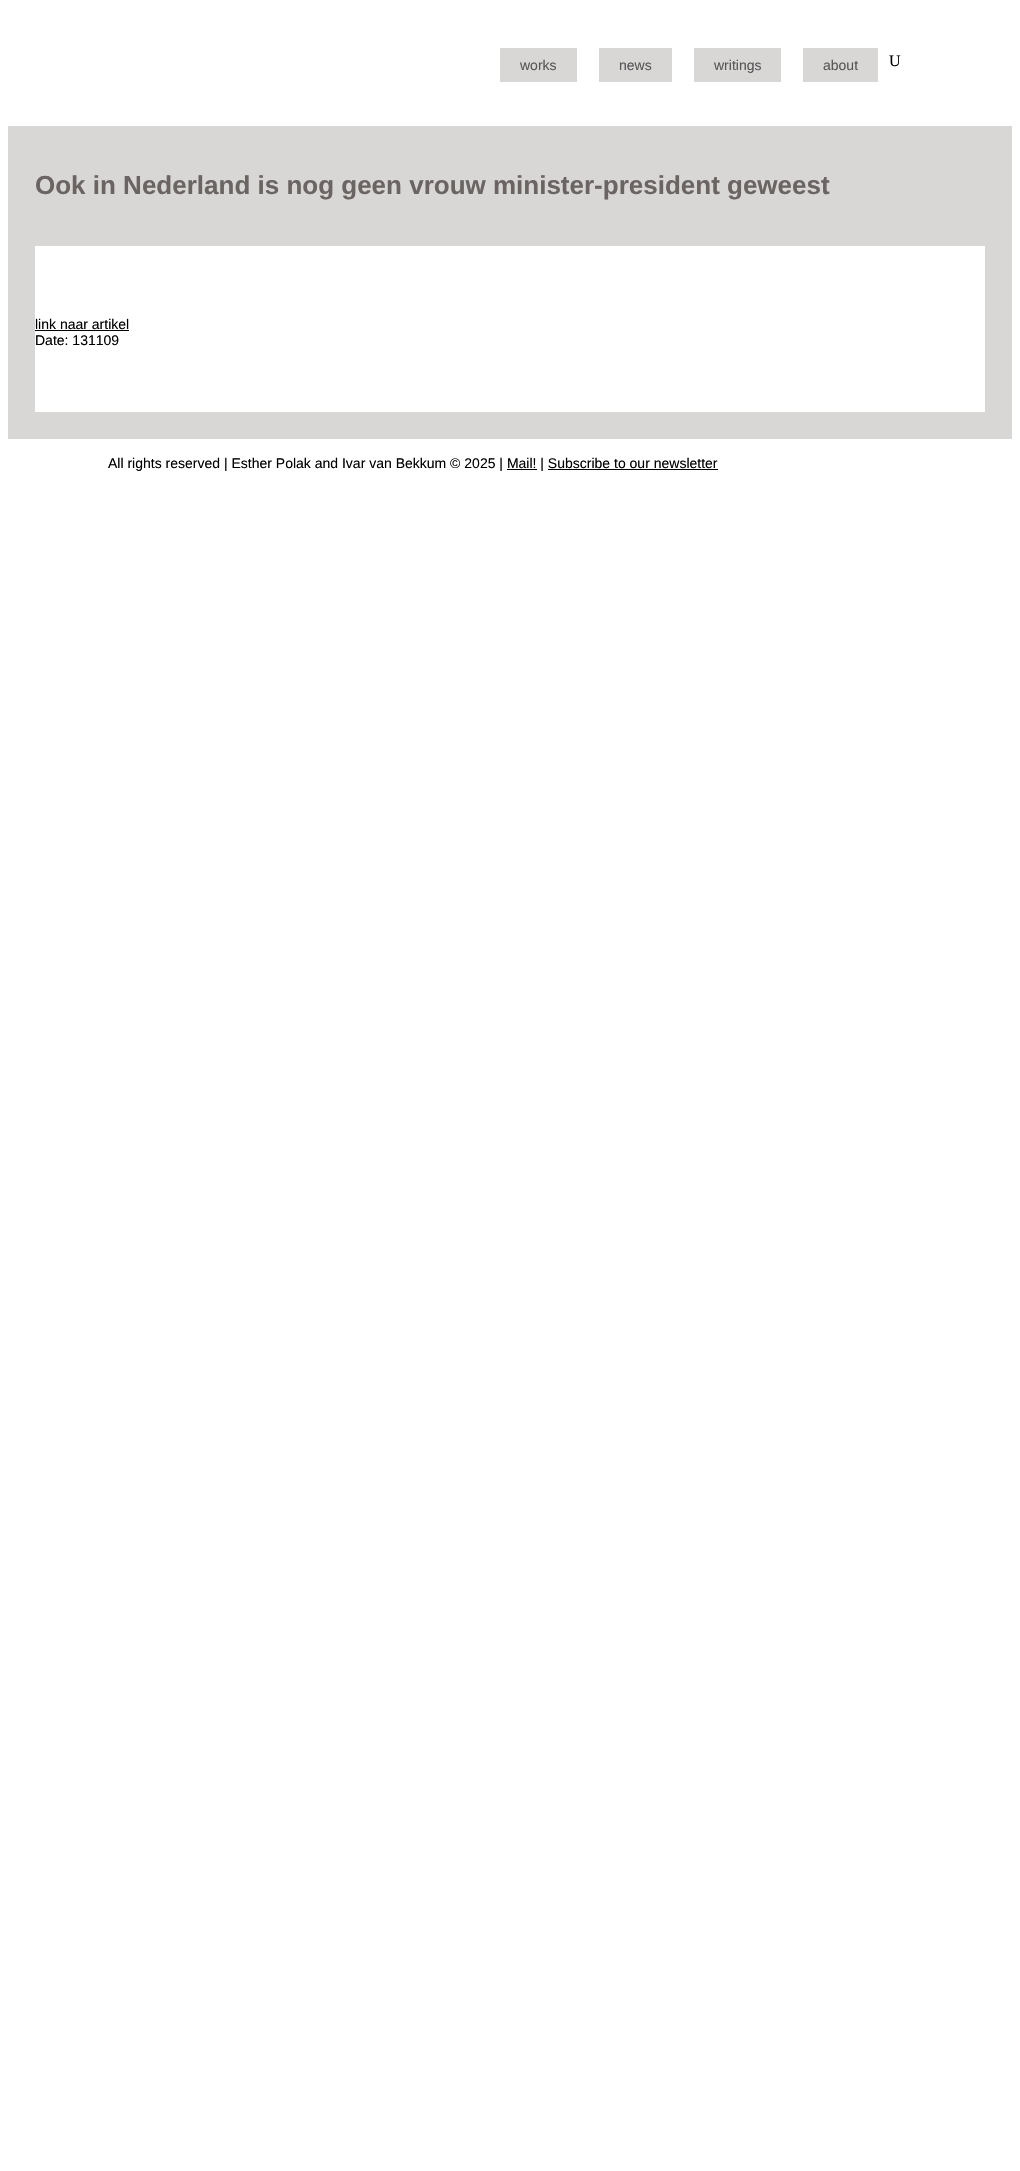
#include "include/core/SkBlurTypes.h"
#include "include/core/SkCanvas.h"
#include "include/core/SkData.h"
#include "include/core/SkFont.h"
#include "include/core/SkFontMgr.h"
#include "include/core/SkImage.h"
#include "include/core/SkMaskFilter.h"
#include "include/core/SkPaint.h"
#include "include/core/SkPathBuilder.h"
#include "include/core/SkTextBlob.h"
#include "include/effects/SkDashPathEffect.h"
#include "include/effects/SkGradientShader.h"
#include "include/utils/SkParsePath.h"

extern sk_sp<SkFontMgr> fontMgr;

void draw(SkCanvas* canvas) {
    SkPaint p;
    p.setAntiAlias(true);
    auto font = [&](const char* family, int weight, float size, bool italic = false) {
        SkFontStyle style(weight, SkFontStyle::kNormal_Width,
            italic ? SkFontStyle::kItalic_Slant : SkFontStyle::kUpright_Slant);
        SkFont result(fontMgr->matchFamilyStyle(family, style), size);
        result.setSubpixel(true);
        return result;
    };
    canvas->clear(0xFFFFFFFF);
    p.setColor(0xFFD9D6D6);
    canvas->drawRect(SkRect::MakeLTRB(500, 48, 577, 82), p);
    auto font1 = font("Liberation Sans", 400, 14);
    p.setColor(0xFF575656);
    canvas->drawString("works", 520, 70, font1, p);
    p.setColor(0xFFD9D6D6);
    canvas->drawRect(SkRect::MakeLTRB(599, 48, 672, 82), p);
    p.setColor(0xFF575656);
    canvas->drawString("news", 619, 70, font1, p);
    p.setColor(0xFFD9D6D6);
    canvas->drawRect(SkRect::MakeLTRB(694, 48, 781, 82), p);
    p.setColor(0xFF575656);
    canvas->drawString("writings", 714, 70, font1, p);
    p.setColor(0xFFD9D6D6);
    canvas->drawRect(SkRect::MakeLTRB(803, 48, 878, 82), p);
    p.setColor(0xFF575656);
    canvas->drawString("about", 823, 70, font1, p);
    auto font2 = font("Liberation Serif", 400, 16);
    p.setColor(0xFF000000);
    canvas->drawString("U", 889, 66, font2, p);
    p.setColor(0xFFD9D6D6);
    canvas->drawRect(SkRect::MakeLTRB(8, 126, 1012, 439), p);
    auto font3 = font("Liberation Sans", 700, 26);
    p.setColor(0xFF6A6562);
    canvas->drawString("Ook in Nederland is nog geen vrouw minister-president geweest", 35, 194, font3, p);
    p.setColor(0xFFFFFFFF);
    canvas->drawRect(SkRect::MakeLTRB(35, 246, 985, 412), p);
    p.setColor(0xFF000000);
    canvas->drawString("link naar artikel", 35, 329, font1, p);
    canvas->drawRect(SkRect::MakeLTRB(35, 330, 129, 331), p);
    canvas->drawString("Date: 131109", 35, 345, font1, p);
    canvas->drawString("All rights reserved | Esther Polak and Ivar van Bekkum © 2025 | Mail! | Subscribe to our newsletter", 108, 468, font1, p);
    canvas->drawRect(SkRect::MakeLTRB(507, 469, 537, 470), p);
    canvas->drawRect(SkRect::MakeLTRB(548, 469, 718, 470), p);
}
